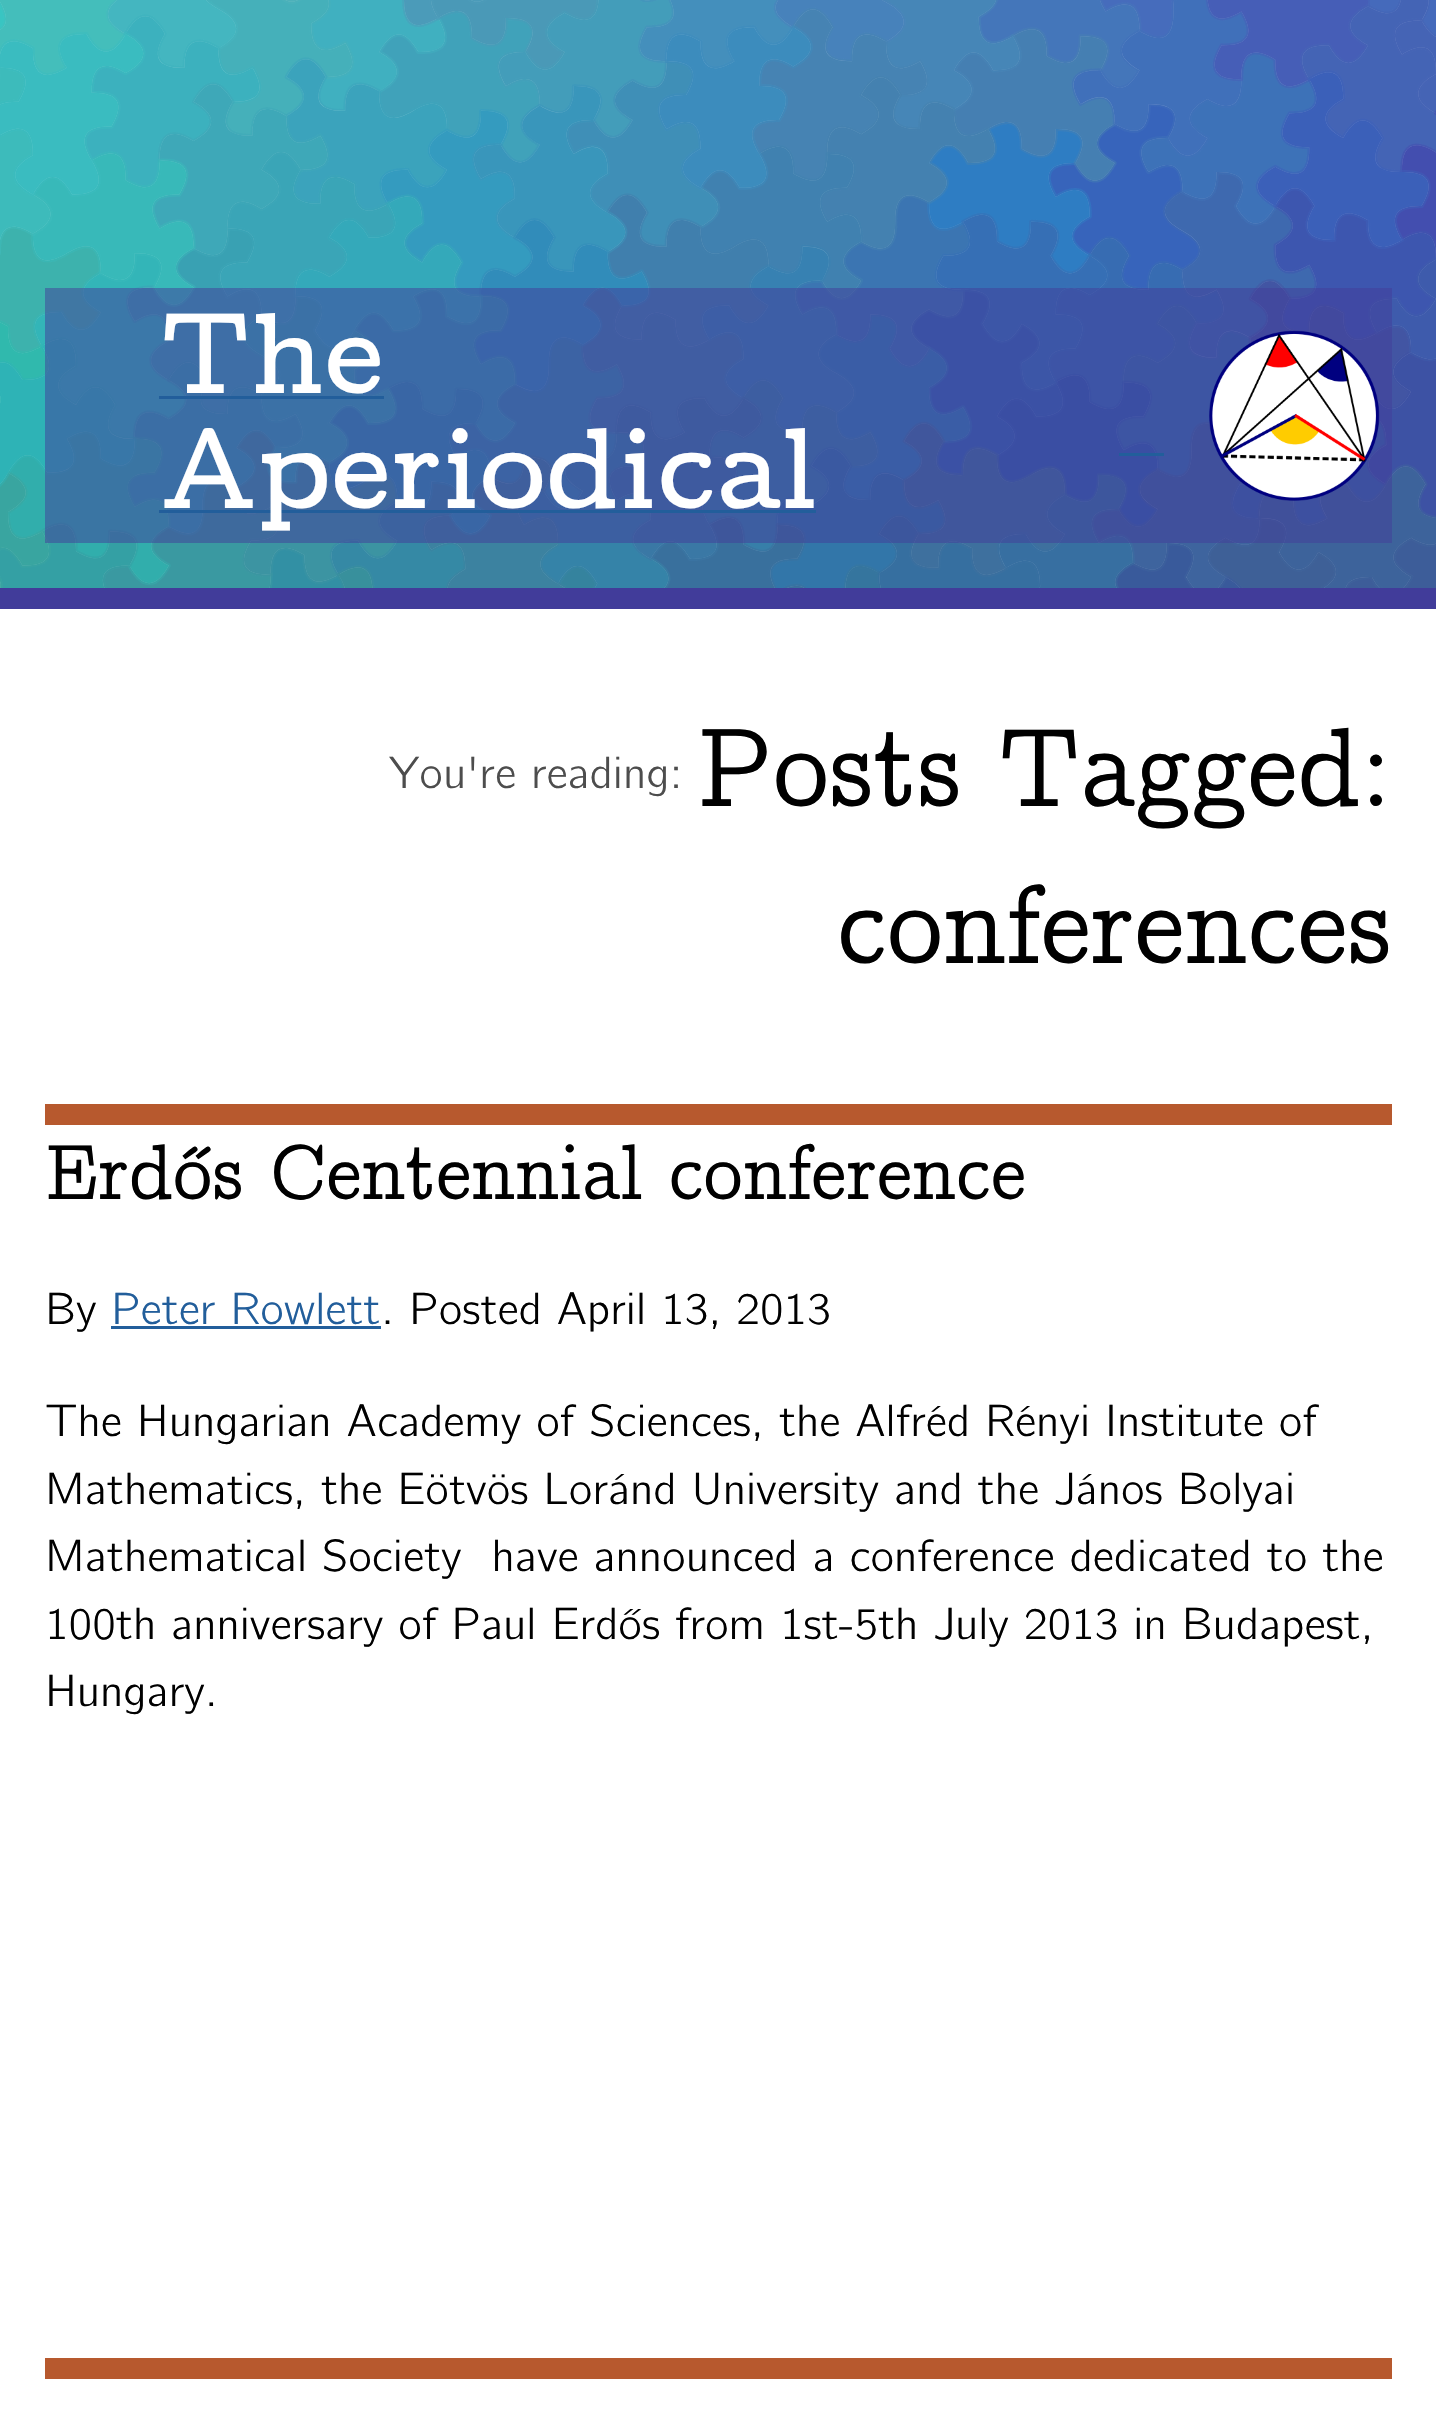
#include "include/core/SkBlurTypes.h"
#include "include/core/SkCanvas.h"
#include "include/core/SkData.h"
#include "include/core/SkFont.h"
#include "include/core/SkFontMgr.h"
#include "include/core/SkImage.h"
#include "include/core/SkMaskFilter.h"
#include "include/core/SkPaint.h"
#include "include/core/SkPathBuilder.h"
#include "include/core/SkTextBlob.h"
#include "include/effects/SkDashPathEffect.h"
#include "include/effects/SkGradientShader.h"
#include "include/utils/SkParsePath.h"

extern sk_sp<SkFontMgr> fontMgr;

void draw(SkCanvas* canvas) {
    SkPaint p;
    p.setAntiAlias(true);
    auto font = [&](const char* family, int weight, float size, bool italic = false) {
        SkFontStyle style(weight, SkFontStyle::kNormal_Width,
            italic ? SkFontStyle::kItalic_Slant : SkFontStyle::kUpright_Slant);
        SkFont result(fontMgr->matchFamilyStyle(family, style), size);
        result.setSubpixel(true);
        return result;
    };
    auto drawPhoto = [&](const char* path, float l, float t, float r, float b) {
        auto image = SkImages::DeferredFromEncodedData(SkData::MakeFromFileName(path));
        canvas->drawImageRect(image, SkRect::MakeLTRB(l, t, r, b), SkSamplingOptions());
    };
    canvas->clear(0xFFFFFFFF);
    drawPhoto("media/1.png", 0, 0, 1436, 588);
    p.setColor(0xFF413C9A);
    canvas->drawRect(SkRect::MakeLTRB(0, 588, 1436, 609), p);
    p.setColor(0x80413C9A);
    canvas->drawRect(SkRect::MakeLTRB(45, 288, 1392, 543), p);
    auto font1 = font("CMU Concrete", 700, 115);
    p.setColor(0xFFFFFFFF);
    canvas->drawString("The", 160, 393, font1, p);
    p.setColor(0xFF225E9B);
    canvas->drawRect(SkRect::MakeLTRB(159, 396, 384, 399), p);
    canvas->drawRect(SkRect::MakeLTRB(159, 510, 816, 513), p);
    p.setColor(0xFFFFFFFF);
    canvas->drawString("Aperiodical", 160, 508, font1, p);
    p.setColor(0xFF225E9B);
    canvas->drawRect(SkRect::MakeLTRB(1119, 453, 1164, 456), p);
    drawPhoto("media/2.png", 1209, 330, 1380, 501);
    auto font2 = font("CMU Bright", 400, 45);
    p.setColor(0xFF4D4D4D);
    canvas->drawString("You're reading:", 389, 788, font2, p);
    auto font3 = font("CMU Concrete", 400, 112.5f);
    p.setColor(0xFF000000);
    canvas->drawString("Posts Tagged:", 697, 806, font3, p);
    canvas->drawString("conferences", 837, 963, font3, p);
    p.setColor(0xFFB7592E);
    canvas->drawRect(SkRect::MakeLTRB(45, 1104, 1392, 1125), p);
    auto font4 = font("CMU Concrete", 400, 78.75f);
    p.setColor(0xFF000000);
    canvas->drawString("Erdős Centennial conference", 45, 1199, font4, p);
    canvas->drawString("By", 45, 1324, font2, p);
    p.setColor(0xFF225E9B);
    canvas->drawString("Peter Rowlett", 111, 1324, font2, p);
    canvas->drawRect(SkRect::MakeLTRB(111, 1326, 381, 1329), p);
    p.setColor(0xFF000000);
    {
        const struct { const char* s; float x, y; } items[] = {
            {". Posted April 13, 2013", 381, 1324},
            {"The Hungarian Academy of Sciences, the Alfréd Rényi Institute of", 45, 1436},
            {"Mathematics, the Eötvös Loránd University and the János Bolyai", 45, 1504},
            {"Mathematical Society  have announced a conference dedicated to the", 45, 1571},
            {"100th anniversary of Paul Erdős from 1st-5th July 2013 in Budapest,", 45, 1639},
            {"Hungary.", 45, 1706},
        };
        for (auto [s, x, y] : items) {
            canvas->drawString(s, x, y, font2, p);
        }
    }
    p.setColor(0xFFB7592E);
    canvas->drawRect(SkRect::MakeLTRB(45, 2358, 1392, 2379), p);
}
